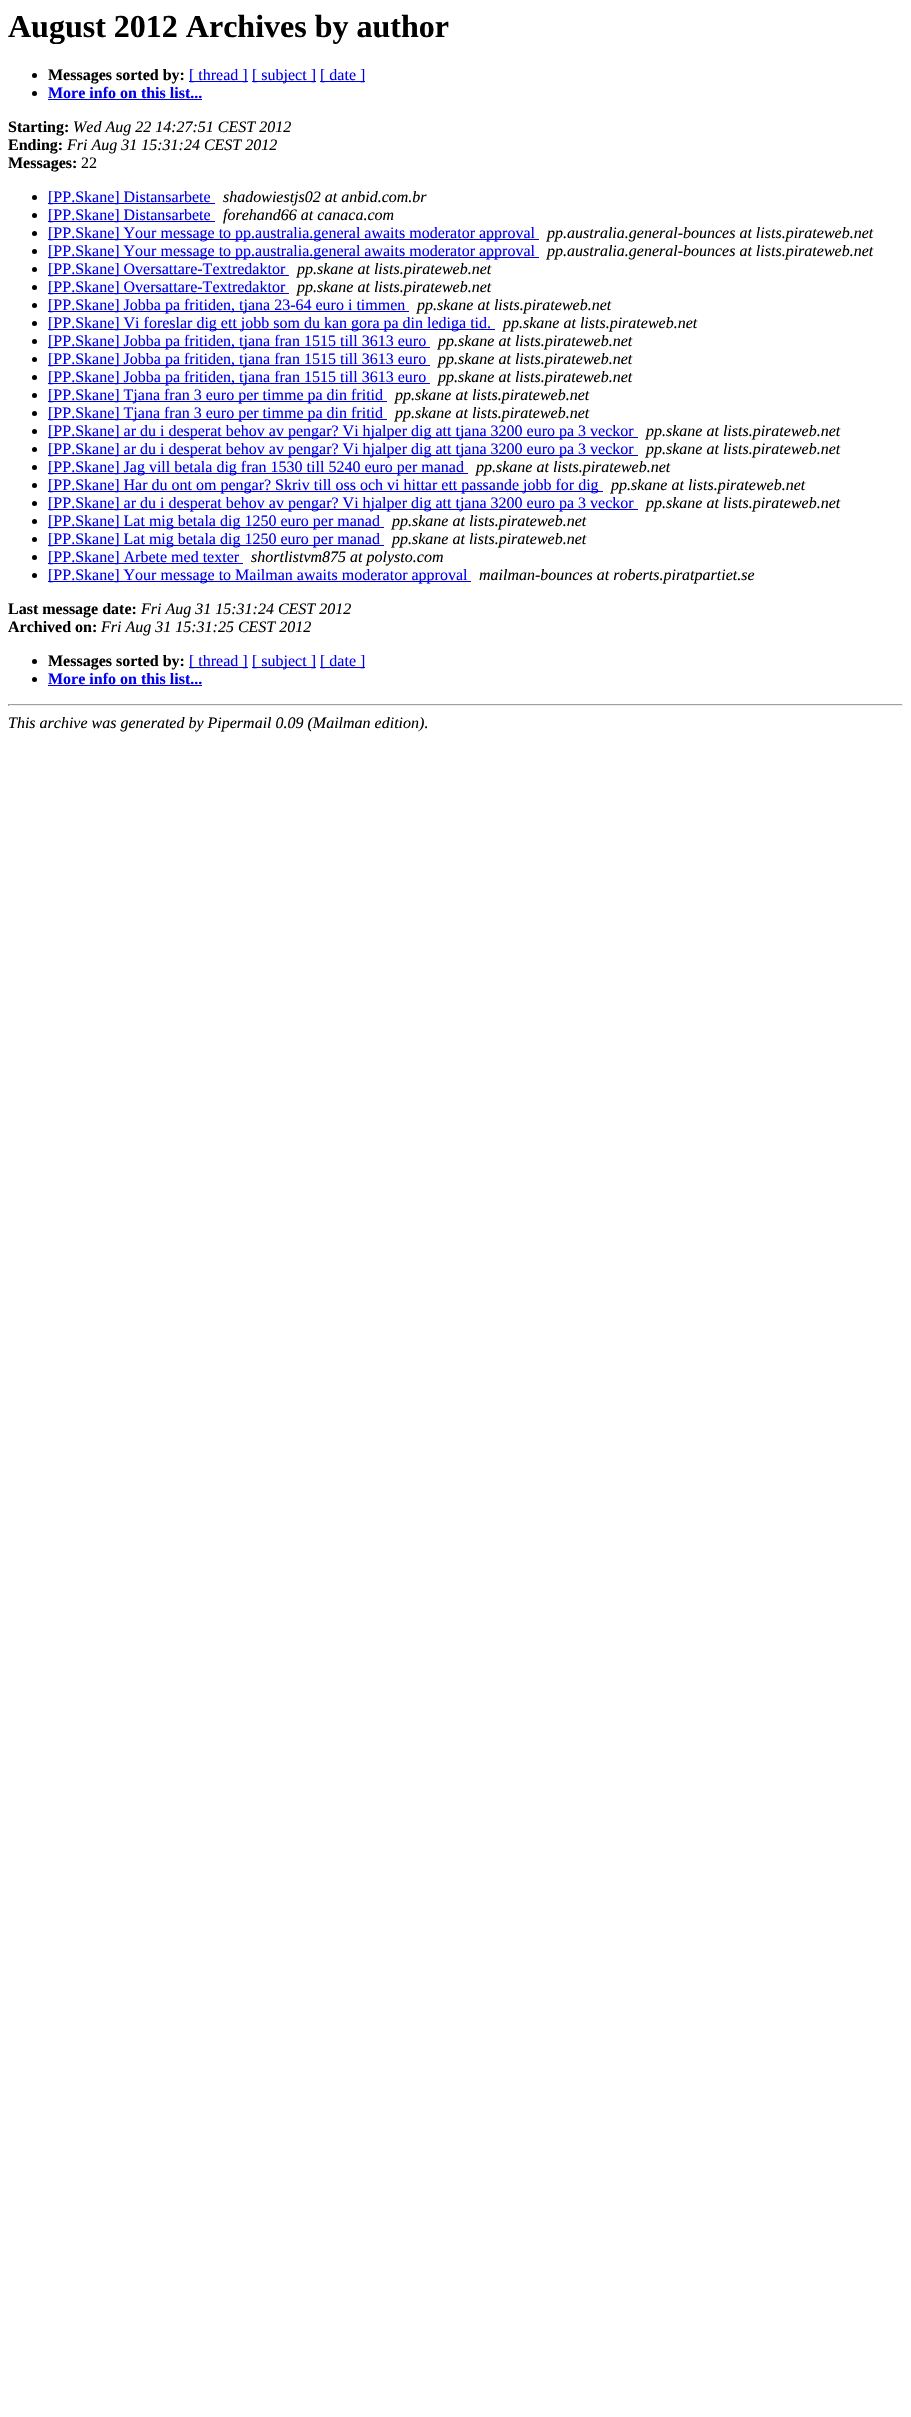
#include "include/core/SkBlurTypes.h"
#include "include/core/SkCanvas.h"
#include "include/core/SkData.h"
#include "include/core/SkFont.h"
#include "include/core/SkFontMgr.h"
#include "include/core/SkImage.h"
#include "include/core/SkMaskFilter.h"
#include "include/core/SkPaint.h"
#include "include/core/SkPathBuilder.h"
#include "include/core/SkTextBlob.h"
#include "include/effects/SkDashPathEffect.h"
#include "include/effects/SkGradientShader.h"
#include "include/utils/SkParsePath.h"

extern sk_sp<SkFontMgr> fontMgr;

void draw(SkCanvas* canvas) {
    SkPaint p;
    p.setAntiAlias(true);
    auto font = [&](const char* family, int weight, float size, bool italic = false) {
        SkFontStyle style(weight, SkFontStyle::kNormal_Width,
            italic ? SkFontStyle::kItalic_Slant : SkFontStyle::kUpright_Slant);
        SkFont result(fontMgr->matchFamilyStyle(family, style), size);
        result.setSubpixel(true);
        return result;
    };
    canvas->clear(0xFFFFFFFF);
    auto font1 = font("Liberation Serif", 700, 32);
    p.setColor(0xFF000000);
    canvas->drawString("August 2012 Archives by author", 8, 37, font1, p);
    canvas->drawCircle(34.5f, 75.5f, 2.5f, p);
    auto font2 = font("Liberation Serif", 700, 16);
    canvas->drawString("Messages sorted by:", 48, 80, font2, p);
    p.setColor(0xFF0000EE);
    canvas->drawRect(SkRect::MakeLTRB(189, 81, 248, 82), p);
    auto font3 = font("Liberation Serif", 400, 16);
    canvas->drawString("[ thread ]", 189, 80, font3, p);
    canvas->drawRect(SkRect::MakeLTRB(252, 81, 316, 82), p);
    canvas->drawString("[ subject ]", 252, 80, font3, p);
    canvas->drawRect(SkRect::MakeLTRB(320, 81, 365, 82), p);
    canvas->drawString("[ date ]", 320, 80, font3, p);
    p.setColor(0xFF000000);
    canvas->drawCircle(34.5f, 93.5f, 2.5f, p);
    p.setColor(0xFF0000EE);
    canvas->drawString("More info on this list...", 48, 98, font2, p);
    canvas->drawRect(SkRect::MakeLTRB(48, 99, 202, 100), p);
    p.setColor(0xFF000000);
    canvas->drawString("Starting:", 8, 132, font2, p);
    auto font4 = font("Liberation Serif", 400, 16, true);
    canvas->drawString("Wed Aug 22 14:27:51 CEST 2012", 73, 132, font4, p);
    canvas->drawString("Ending:", 8, 150, font2, p);
    canvas->drawString("Fri Aug 31 15:31:24 CEST 2012", 67, 150, font4, p);
    canvas->drawString("Messages:", 8, 168, font2, p);
    canvas->drawString("22", 81, 168, font3, p);
    canvas->drawCircle(34.5f, 197.5f, 2.5f, p);
    p.setColor(0xFF0000EE);
    canvas->drawRect(SkRect::MakeLTRB(48, 203, 215, 204), p);
    canvas->drawString("[PP.Skane] Distansarbete", 48, 202, font3, p);
    p.setColor(0xFF000000);
    canvas->drawString("shadowiestjs02 at anbid.com.br", 223, 202, font4, p);
    canvas->drawCircle(34.5f, 215.5f, 2.5f, p);
    p.setColor(0xFF0000EE);
    canvas->drawRect(SkRect::MakeLTRB(48, 221, 215, 222), p);
    canvas->drawString("[PP.Skane] Distansarbete", 48, 220, font3, p);
    p.setColor(0xFF000000);
    canvas->drawString("forehand66 at canaca.com", 223, 220, font4, p);
    canvas->drawCircle(34.5f, 233.5f, 2.5f, p);
    p.setColor(0xFF0000EE);
    canvas->drawRect(SkRect::MakeLTRB(48, 239, 539, 240), p);
    canvas->drawString("[PP.Skane] Your message to pp.australia.general awaits moderator approval", 48, 238, font3, p);
    p.setColor(0xFF000000);
    canvas->drawString("pp.australia.general-bounces at lists.pirateweb.net", 547, 238, font4, p);
    canvas->drawCircle(34.5f, 251.5f, 2.5f, p);
    p.setColor(0xFF0000EE);
    canvas->drawRect(SkRect::MakeLTRB(48, 257, 539, 258), p);
    canvas->drawString("[PP.Skane] Your message to pp.australia.general awaits moderator approval", 48, 256, font3, p);
    p.setColor(0xFF000000);
    canvas->drawString("pp.australia.general-bounces at lists.pirateweb.net", 547, 256, font4, p);
    canvas->drawCircle(34.5f, 269.5f, 2.5f, p);
    p.setColor(0xFF0000EE);
    canvas->drawRect(SkRect::MakeLTRB(48, 275, 289, 276), p);
    canvas->drawString("[PP.Skane] Oversattare-Textredaktor", 48, 274, font3, p);
    p.setColor(0xFF000000);
    canvas->drawString("pp.skane at lists.pirateweb.net", 297, 274, font4, p);
    canvas->drawCircle(34.5f, 287.5f, 2.5f, p);
    p.setColor(0xFF0000EE);
    canvas->drawRect(SkRect::MakeLTRB(48, 293, 289, 294), p);
    canvas->drawString("[PP.Skane] Oversattare-Textredaktor", 48, 292, font3, p);
    p.setColor(0xFF000000);
    canvas->drawString("pp.skane at lists.pirateweb.net", 297, 292, font4, p);
    canvas->drawCircle(34.5f, 305.5f, 2.5f, p);
    p.setColor(0xFF0000EE);
    canvas->drawRect(SkRect::MakeLTRB(48, 311, 409, 312), p);
    canvas->drawString("[PP.Skane] Jobba pa fritiden, tjana 23-64 euro i timmen", 48, 310, font3, p);
    p.setColor(0xFF000000);
    canvas->drawString("pp.skane at lists.pirateweb.net", 417, 310, font4, p);
    canvas->drawCircle(34.5f, 323.5f, 2.5f, p);
    p.setColor(0xFF0000EE);
    canvas->drawRect(SkRect::MakeLTRB(48, 329, 495, 330), p);
    canvas->drawString("[PP.Skane] Vi foreslar dig ett jobb som du kan gora pa din lediga tid.", 48, 328, font3, p);
    p.setColor(0xFF000000);
    canvas->drawString("pp.skane at lists.pirateweb.net", 503, 328, font4, p);
    canvas->drawCircle(34.5f, 341.5f, 2.5f, p);
    p.setColor(0xFF0000EE);
    canvas->drawRect(SkRect::MakeLTRB(48, 347, 430, 348), p);
    canvas->drawString("[PP.Skane] Jobba pa fritiden, tjana fran 1515 till 3613 euro", 48, 346, font3, p);
    p.setColor(0xFF000000);
    canvas->drawString("pp.skane at lists.pirateweb.net", 438, 346, font4, p);
    canvas->drawCircle(34.5f, 359.5f, 2.5f, p);
    p.setColor(0xFF0000EE);
    canvas->drawRect(SkRect::MakeLTRB(48, 365, 430, 366), p);
    canvas->drawString("[PP.Skane] Jobba pa fritiden, tjana fran 1515 till 3613 euro", 48, 364, font3, p);
    p.setColor(0xFF000000);
    canvas->drawString("pp.skane at lists.pirateweb.net", 438, 364, font4, p);
    canvas->drawCircle(34.5f, 377.5f, 2.5f, p);
    p.setColor(0xFF0000EE);
    canvas->drawRect(SkRect::MakeLTRB(48, 383, 430, 384), p);
    canvas->drawString("[PP.Skane] Jobba pa fritiden, tjana fran 1515 till 3613 euro", 48, 382, font3, p);
    p.setColor(0xFF000000);
    canvas->drawString("pp.skane at lists.pirateweb.net", 438, 382, font4, p);
    canvas->drawCircle(34.5f, 395.5f, 2.5f, p);
    p.setColor(0xFF0000EE);
    canvas->drawRect(SkRect::MakeLTRB(48, 401, 387, 402), p);
    canvas->drawString("[PP.Skane] Tjana fran 3 euro per timme pa din fritid", 48, 400, font3, p);
    p.setColor(0xFF000000);
    canvas->drawString("pp.skane at lists.pirateweb.net", 395, 400, font4, p);
    canvas->drawCircle(34.5f, 413.5f, 2.5f, p);
    p.setColor(0xFF0000EE);
    canvas->drawRect(SkRect::MakeLTRB(48, 419, 387, 420), p);
    canvas->drawString("[PP.Skane] Tjana fran 3 euro per timme pa din fritid", 48, 418, font3, p);
    p.setColor(0xFF000000);
    canvas->drawString("pp.skane at lists.pirateweb.net", 395, 418, font4, p);
    canvas->drawCircle(34.5f, 431.5f, 2.5f, p);
    p.setColor(0xFF0000EE);
    canvas->drawRect(SkRect::MakeLTRB(48, 437, 638, 438), p);
    canvas->drawString("[PP.Skane] ar du i desperat behov av pengar? Vi hjalper dig att tjana 3200 euro pa 3 veckor", 48, 436, font3, p);
    p.setColor(0xFF000000);
    canvas->drawString("pp.skane at lists.pirateweb.net", 646, 436, font4, p);
    canvas->drawCircle(34.5f, 449.5f, 2.5f, p);
    p.setColor(0xFF0000EE);
    canvas->drawRect(SkRect::MakeLTRB(48, 455, 638, 456), p);
    canvas->drawString("[PP.Skane] ar du i desperat behov av pengar? Vi hjalper dig att tjana 3200 euro pa 3 veckor", 48, 454, font3, p);
    p.setColor(0xFF000000);
    canvas->drawString("pp.skane at lists.pirateweb.net", 646, 454, font4, p);
    canvas->drawCircle(34.5f, 467.5f, 2.5f, p);
    p.setColor(0xFF0000EE);
    canvas->drawRect(SkRect::MakeLTRB(48, 473, 468, 474), p);
    canvas->drawString("[PP.Skane] Jag vill betala dig fran 1530 till 5240 euro per manad", 48, 472, font3, p);
    p.setColor(0xFF000000);
    canvas->drawString("pp.skane at lists.pirateweb.net", 476, 472, font4, p);
    canvas->drawCircle(34.5f, 485.5f, 2.5f, p);
    p.setColor(0xFF0000EE);
    canvas->drawRect(SkRect::MakeLTRB(48, 491, 603, 492), p);
    canvas->drawString("[PP.Skane] Har du ont om pengar? Skriv till oss och vi hittar ett passande jobb for dig", 48, 490, font3, p);
    p.setColor(0xFF000000);
    canvas->drawString("pp.skane at lists.pirateweb.net", 611, 490, font4, p);
    canvas->drawCircle(34.5f, 503.5f, 2.5f, p);
    p.setColor(0xFF0000EE);
    canvas->drawRect(SkRect::MakeLTRB(48, 509, 638, 510), p);
    canvas->drawString("[PP.Skane] ar du i desperat behov av pengar? Vi hjalper dig att tjana 3200 euro pa 3 veckor", 48, 508, font3, p);
    p.setColor(0xFF000000);
    canvas->drawString("pp.skane at lists.pirateweb.net", 646, 508, font4, p);
    canvas->drawCircle(34.5f, 521.5f, 2.5f, p);
    p.setColor(0xFF0000EE);
    canvas->drawRect(SkRect::MakeLTRB(48, 527, 384, 528), p);
    canvas->drawString("[PP.Skane] Lat mig betala dig 1250 euro per manad", 48, 526, font3, p);
    p.setColor(0xFF000000);
    canvas->drawString("pp.skane at lists.pirateweb.net", 392, 526, font4, p);
    canvas->drawCircle(34.5f, 539.5f, 2.5f, p);
    p.setColor(0xFF0000EE);
    canvas->drawRect(SkRect::MakeLTRB(48, 545, 384, 546), p);
    canvas->drawString("[PP.Skane] Lat mig betala dig 1250 euro per manad", 48, 544, font3, p);
    p.setColor(0xFF000000);
    canvas->drawString("pp.skane at lists.pirateweb.net", 392, 544, font4, p);
    canvas->drawCircle(34.5f, 557.5f, 2.5f, p);
    p.setColor(0xFF0000EE);
    canvas->drawRect(SkRect::MakeLTRB(48, 563, 243, 564), p);
    canvas->drawString("[PP.Skane] Arbete med texter", 48, 562, font3, p);
    p.setColor(0xFF000000);
    canvas->drawString("shortlistvm875 at polysto.com", 251, 562, font4, p);
    canvas->drawCircle(34.5f, 575.5f, 2.5f, p);
    p.setColor(0xFF0000EE);
    canvas->drawRect(SkRect::MakeLTRB(48, 581, 471, 582), p);
    canvas->drawString("[PP.Skane] Your message to Mailman awaits moderator approval", 48, 580, font3, p);
    p.setColor(0xFF000000);
    canvas->drawString("mailman-bounces at roberts.piratpartiet.se", 479, 580, font4, p);
    canvas->drawString("Last message date:", 8, 614, font2, p);
    canvas->drawString("Fri Aug 31 15:31:24 CEST 2012", 141, 614, font4, p);
    canvas->drawString("Archived on:", 8, 632, font2, p);
    canvas->drawString("Fri Aug 31 15:31:25 CEST 2012", 101, 632, font4, p);
    canvas->drawCircle(34.5f, 661.5f, 2.5f, p);
    canvas->drawString("Messages sorted by:", 48, 666, font2, p);
    p.setColor(0xFF0000EE);
    canvas->drawRect(SkRect::MakeLTRB(189, 667, 248, 668), p);
    canvas->drawString("[ thread ]", 189, 666, font3, p);
    canvas->drawRect(SkRect::MakeLTRB(252, 667, 316, 668), p);
    canvas->drawString("[ subject ]", 252, 666, font3, p);
    canvas->drawRect(SkRect::MakeLTRB(320, 667, 365, 668), p);
    canvas->drawString("[ date ]", 320, 666, font3, p);
    p.setColor(0xFF000000);
    canvas->drawCircle(34.5f, 679.5f, 2.5f, p);
    p.setColor(0xFF0000EE);
    canvas->drawString("More info on this list...", 48, 684, font2, p);
    {
        const struct { float l, t, r, b; SkColor color; } items[] = {
            {48, 685, 202, 686, 0xFF0000EE},
            {8, 704, 903, 705, 0xFF9F9F9F},
            {902, 704, 903, 706, 0xFFEEEEEE},
            {8, 705, 903, 706, 0xFFEEEEEE},
            {8, 704, 9, 706, 0xFF9F9F9F},
        };
        for (auto [l, t, r, b, color] : items) {
            p.setColor(color);
            canvas->drawRect(SkRect::MakeLTRB(l, t, r, b), p);
        }
    }
    p.setColor(0xFF000000);
    canvas->drawString("This archive was generated by Pipermail 0.09 (Mailman edition).", 8, 728, font4, p);
}
